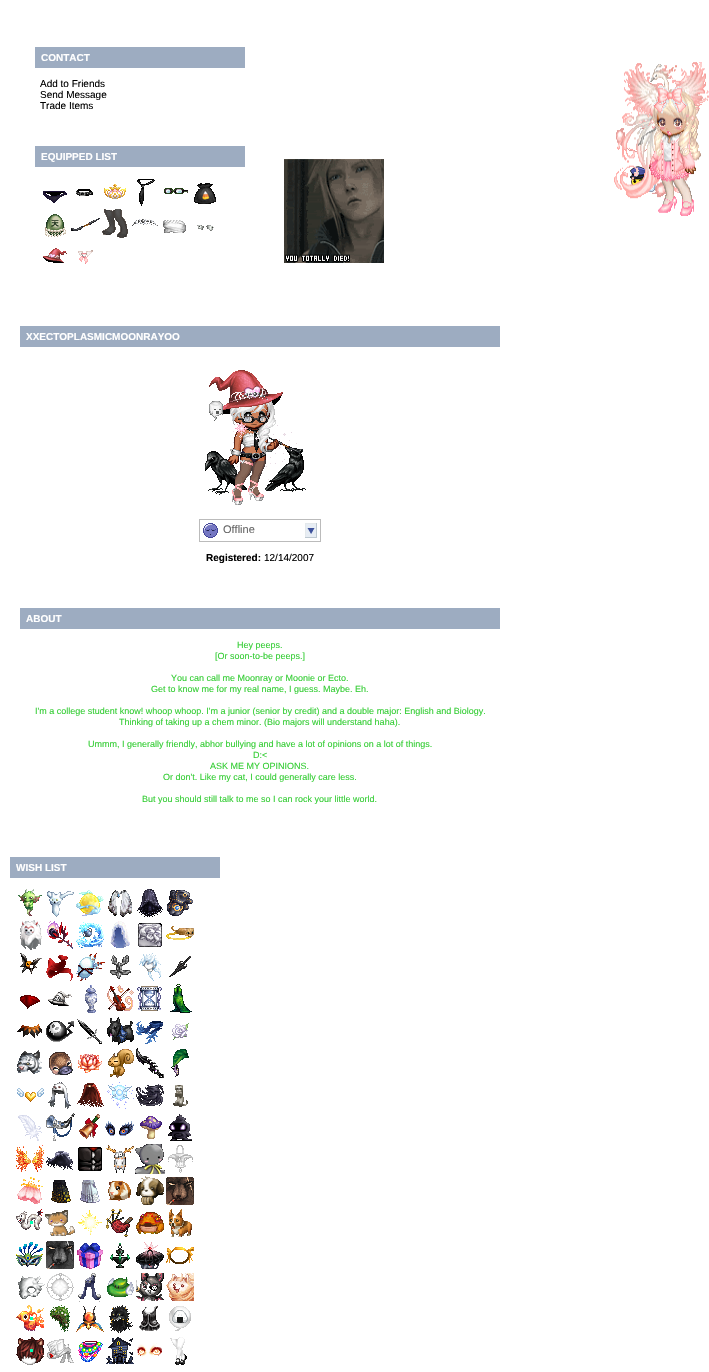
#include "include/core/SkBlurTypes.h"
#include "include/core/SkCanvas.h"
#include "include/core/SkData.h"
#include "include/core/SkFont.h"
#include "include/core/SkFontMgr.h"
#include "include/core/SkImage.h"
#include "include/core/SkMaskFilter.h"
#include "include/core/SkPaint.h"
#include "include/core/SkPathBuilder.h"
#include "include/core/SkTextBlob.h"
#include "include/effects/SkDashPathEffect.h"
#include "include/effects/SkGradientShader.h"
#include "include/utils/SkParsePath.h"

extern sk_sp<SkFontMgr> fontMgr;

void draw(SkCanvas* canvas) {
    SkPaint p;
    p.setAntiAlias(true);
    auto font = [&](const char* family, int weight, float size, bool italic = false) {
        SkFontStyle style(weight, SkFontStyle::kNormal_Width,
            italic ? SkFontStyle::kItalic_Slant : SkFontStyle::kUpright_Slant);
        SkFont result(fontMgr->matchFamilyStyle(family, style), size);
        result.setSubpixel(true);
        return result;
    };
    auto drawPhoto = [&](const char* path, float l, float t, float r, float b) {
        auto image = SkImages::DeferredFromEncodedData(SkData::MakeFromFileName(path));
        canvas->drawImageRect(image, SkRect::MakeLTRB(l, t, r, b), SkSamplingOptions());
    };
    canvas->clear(0xFFFFFFFF);
    p.setColor(0xFF9DACC1);
    canvas->drawRect(SkRect::MakeLTRB(35, 47, 245, 68), p);
    auto font1 = font("Liberation Sans", 700, 10);
    p.setColor(0xFFFFFFFF);
    canvas->drawString("CONTACT", 41, 61, font1, p);
    auto font2 = font("Liberation Sans", 400, 10);
    p.setColor(0xFF000000);
    {
        const struct { const char* s; float x, y; } items[] = {
            {"Add to Friends", 40, 87},
            {"Send Message", 40, 98},
            {"Trade Items", 40, 109},
        };
        for (auto [s, x, y] : items) {
            canvas->drawString(s, x, y, font2, p);
        }
    }
    p.setColor(0xFF9DACC1);
    canvas->drawRect(SkRect::MakeLTRB(35, 146, 245, 167), p);
    p.setColor(0xFFFFFFFF);
    canvas->drawString("EQUIPPED LIST", 41, 160, font1, p);
    drawPhoto("media/1.png", 43, 191, 67, 203);
    drawPhoto("media/2.png", 76, 189, 93, 196);
    drawPhoto("media/3.png", 104, 184, 126, 199);
    drawPhoto("media/4.png", 137, 179, 155, 206);
    drawPhoto("media/5.png", 164, 188, 188, 194);
    drawPhoto("media/6.png", 194, 183, 216, 204);
    drawPhoto("media/7.png", 45, 214, 66, 237);
    drawPhoto("media/8.png", 71, 218, 100, 231);
    drawPhoto("media/9.png", 102, 209, 128, 238);
    drawPhoto("media/10.png", 132, 219, 158, 226);
    drawPhoto("media/11.png", 163, 220, 186, 233);
    drawPhoto("media/12.png", 197, 225, 214, 231);
    drawPhoto("media/13.png", 43, 248, 67, 263);
    drawPhoto("media/14.png", 78, 250, 93, 264);
    p.setColor(0xFF9DACC1);
    canvas->drawRect(SkRect::MakeLTRB(20, 326, 500, 347), p);
    p.setColor(0xFFFFFFFF);
    canvas->drawString("XXECTOPLASMICMOONRAYOO", 26, 340, font1, p);
    drawPhoto("media/15.png", 205, 370, 306, 505);
    p.setStyle(SkPaint::kStroke_Style);
    p.setStrokeWidth(1);
    p.setColor(0xFFBBBBBB);
    canvas->drawRect(SkRect::MakeLTRB(199.5f, 519.5f, 320.5f, 541.5f), p);
    drawPhoto("media/16.png", 305, 523, 317, 538);
    drawPhoto("media/17.png", 203, 523, 218, 538);
    auto font3 = font("Liberation Sans", 400, 11);
    p.setStyle(SkPaint::kFill_Style);
    p.setColor(0xFF666666);
    canvas->drawString("Offline", 223, 533, font3, p);
    p.setColor(0xFF000000);
    canvas->drawString("Registered:", 206, 561, font1, p);
    canvas->drawString("12/14/2007", 264, 561, font2, p);
    p.setColor(0xFF9DACC1);
    canvas->drawRect(SkRect::MakeLTRB(20, 608, 500, 629), p);
    p.setColor(0xFFFFFFFF);
    canvas->drawString("ABOUT", 26, 622, font1, p);
    auto font4 = font("Liberation Sans", 400, 9);
    p.setColor(0xFF32CD32);
    {
        const struct { const char* s; float x, y; } items[] = {
            {"Hey peeps.", 237, 648},
            {"[Or soon-to-be peeps.]", 215, 659},
            {"You can call me Moonray or Moonie or Ecto.", 171, 681},
            {"Get to know me for my real name, I guess. Maybe. Eh.", 151, 692},
            {"I'm a college student know! whoop whoop. I'm a junior (senior by credit) and a double major: English and Biology.", 35, 714},
            {"Thinking of taking up a chem minor. (Bio majors will understand haha).", 119, 725},
            {"Ummm, I generally friendly, abhor bullying and have a lot of opinions on a lot of things.", 88, 747},
            {"D:<", 253, 758},
            {"ASK ME MY OPINIONS.", 210, 769},
            {"Or don't. Like my cat, I could generally care less.", 163, 780},
            {"But you should still talk to me so I can rock your little world.", 142, 802},
        };
        for (auto [s, x, y] : items) {
            canvas->drawString(s, x, y, font4, p);
        }
    }
    p.setColor(0xFF9DACC1);
    canvas->drawRect(SkRect::MakeLTRB(10, 857, 220, 878), p);
    p.setColor(0xFFFFFFFF);
    canvas->drawString("WISH LIST", 16, 871, font1, p);
    drawPhoto("media/18.png", 18, 889, 42, 916);
    drawPhoto("media/19.png", 47, 891, 74, 917);
    drawPhoto("media/20.png", 76, 890, 104, 916);
    drawPhoto("media/21.png", 108, 890, 132, 917);
    drawPhoto("media/22.png", 137, 889, 163, 917);
    drawPhoto("media/23.png", 167, 890, 193, 916);
    drawPhoto("media/24.png", 20, 920, 42, 950);
    drawPhoto("media/25.png", 47, 921, 73, 949);
    drawPhoto("media/26.png", 76, 922, 104, 948);
    drawPhoto("media/27.png", 110, 921, 130, 948);
    drawPhoto("media/28.png", 138, 923, 162, 947);
    drawPhoto("media/29.png", 166, 926, 194, 940);
    drawPhoto("media/30.png", 20, 953, 42, 974);
    canvas->drawRect(SkRect::MakeLTRB(30, 965, 33, 968), p);
    drawPhoto("media/31.png", 46, 955, 73, 981);
    drawPhoto("media/32.png", 76, 953, 105, 981);
    drawPhoto("media/33.png", 110, 955, 131, 979);
    drawPhoto("media/34.png", 139, 953, 161, 981);
    drawPhoto("media/35.png", 169, 956, 191, 977);
    drawPhoto("media/36.png", 20, 995, 40, 1009);
    drawPhoto("media/37.png", 48, 991, 72, 1006);
    drawPhoto("media/38.png", 85, 985, 97, 1013);
    drawPhoto("media/39.png", 107, 985, 134, 1011);
    drawPhoto("media/40.png", 137, 986, 162, 1011);
    drawPhoto("media/41.png", 170, 984, 192, 1013);
    drawPhoto("media/42.png", 17, 1024, 42, 1038);
    drawPhoto("media/43.png", 46, 1021, 74, 1042);
    drawPhoto("media/44.png", 77, 1019, 102, 1044);
    drawPhoto("media/45.png", 107, 1017, 134, 1045);
    drawPhoto("media/46.png", 136, 1021, 163, 1044);
    drawPhoto("media/47.png", 172, 1023, 189, 1040);
    drawPhoto("media/48.png", 17, 1050, 42, 1074);
    canvas->drawRect(SkRect::MakeLTRB(30, 1061, 33, 1064), p);
    drawPhoto("media/49.png", 49, 1052, 73, 1075);
    drawPhoto("media/50.png", 78, 1054, 102, 1073);
    drawPhoto("media/51.png", 108, 1049, 134, 1078);
    drawPhoto("media/52.png", 136, 1048, 164, 1078);
    drawPhoto("media/53.png", 171, 1049, 189, 1077);
    drawPhoto("media/54.png", 17, 1088, 44, 1102);
    drawPhoto("media/55.png", 48, 1082, 71, 1109);
    drawPhoto("media/56.png", 77, 1083, 104, 1107);
    drawPhoto("media/57.png", 107, 1082, 134, 1109);
    drawPhoto("media/58.png", 136, 1084, 164, 1106);
    drawPhoto("media/59.png", 173, 1085, 188, 1107);
    drawPhoto("media/60.png", 18, 1115, 42, 1141);
    drawPhoto("media/61.png", 46, 1113, 75, 1141);
    drawPhoto("media/62.png", 79, 1114, 100, 1139);
    drawPhoto("media/63.png", 105, 1121, 134, 1136);
    drawPhoto("media/64.png", 140, 1116, 162, 1139);
    drawPhoto("media/65.png", 168, 1114, 192, 1141);
    drawPhoto("media/66.png", 16, 1145, 44, 1172);
    drawPhoto("media/67.png", 46, 1151, 73, 1170);
    drawPhoto("media/68.png", 78, 1147, 102, 1171);
    drawPhoto("media/69.png", 106, 1145, 134, 1173);
    drawPhoto("media/70.png", 135, 1144, 165, 1174);
    drawPhoto("media/71.png", 168, 1145, 193, 1173);
    drawPhoto("media/72.png", 17, 1177, 43, 1204);
    drawPhoto("media/73.png", 51, 1180, 71, 1203);
    drawPhoto("media/74.png", 80, 1180, 100, 1203);
    drawPhoto("media/75.png", 108, 1181, 131, 1201);
    drawPhoto("media/76.png", 136, 1176, 164, 1205);
    drawPhoto("media/77.png", 166, 1177, 194, 1205);
    drawPhoto("media/78.png", 16, 1209, 43, 1230);
    p.setColor(0xFF00FFB5);
    canvas->drawRect(SkRect::MakeLTRB(30, 1221, 33, 1224), p);
    drawPhoto("media/79.png", 45, 1210, 75, 1236);
    drawPhoto("media/80.png", 78, 1210, 102, 1235);
    drawPhoto("media/81.png", 106, 1209, 133, 1237);
    drawPhoto("media/82.png", 136, 1212, 164, 1234);
    drawPhoto("media/83.png", 169, 1209, 192, 1237);
    drawPhoto("media/84.png", 16, 1242, 43, 1267);
    drawPhoto("media/85.png", 46, 1241, 74, 1269);
    drawPhoto("media/86.png", 77, 1243, 103, 1269);
    drawPhoto("media/87.png", 110, 1243, 130, 1268);
    drawPhoto("media/88.png", 136, 1242, 164, 1269);
    drawPhoto("media/89.png", 166, 1247, 194, 1264);
    drawPhoto("media/90.png", 18, 1276, 45, 1299);
    drawPhoto("media/91.png", 46, 1273, 74, 1301);
    drawPhoto("media/92.png", 78, 1273, 101, 1302);
    drawPhoto("media/93.png", 107, 1277, 134, 1297);
    drawPhoto("media/94.png", 136, 1273, 164, 1301);
    drawPhoto("media/95.png", 166, 1273, 194, 1301);
    drawPhoto("media/96.png", 16, 1305, 44, 1331);
    canvas->drawRect(SkRect::MakeLTRB(30, 1317, 33, 1320), p);
    drawPhoto("media/97.png", 50, 1305, 70, 1332);
    drawPhoto("media/98.png", 76, 1306, 104, 1332);
    drawPhoto("media/99.png", 109, 1305, 133, 1333);
    drawPhoto("media/100.png", 139, 1306, 160, 1331);
    drawPhoto("media/101.png", 169, 1306, 191, 1331);
    drawPhoto("media/102.png", 16, 1337, 44, 1365);
    canvas->drawRect(SkRect::MakeLTRB(30, 1349, 33, 1352), p);
    drawPhoto("media/103.png", 47, 1339, 74, 1363);
    drawPhoto("media/104.png", 78, 1341, 103, 1362);
    drawPhoto("media/105.png", 106, 1337, 134, 1364);
    drawPhoto("media/106.png", 137, 1343, 162, 1357);
    drawPhoto("media/107.png", 170, 1337, 187, 1365);
    drawPhoto("media/108.png", 284, 159, 384, 263);
    drawPhoto("media/110.png", 630, 166, 656, 192);
    drawPhoto("media/109.png", 614, 62, 709, 216);
}
